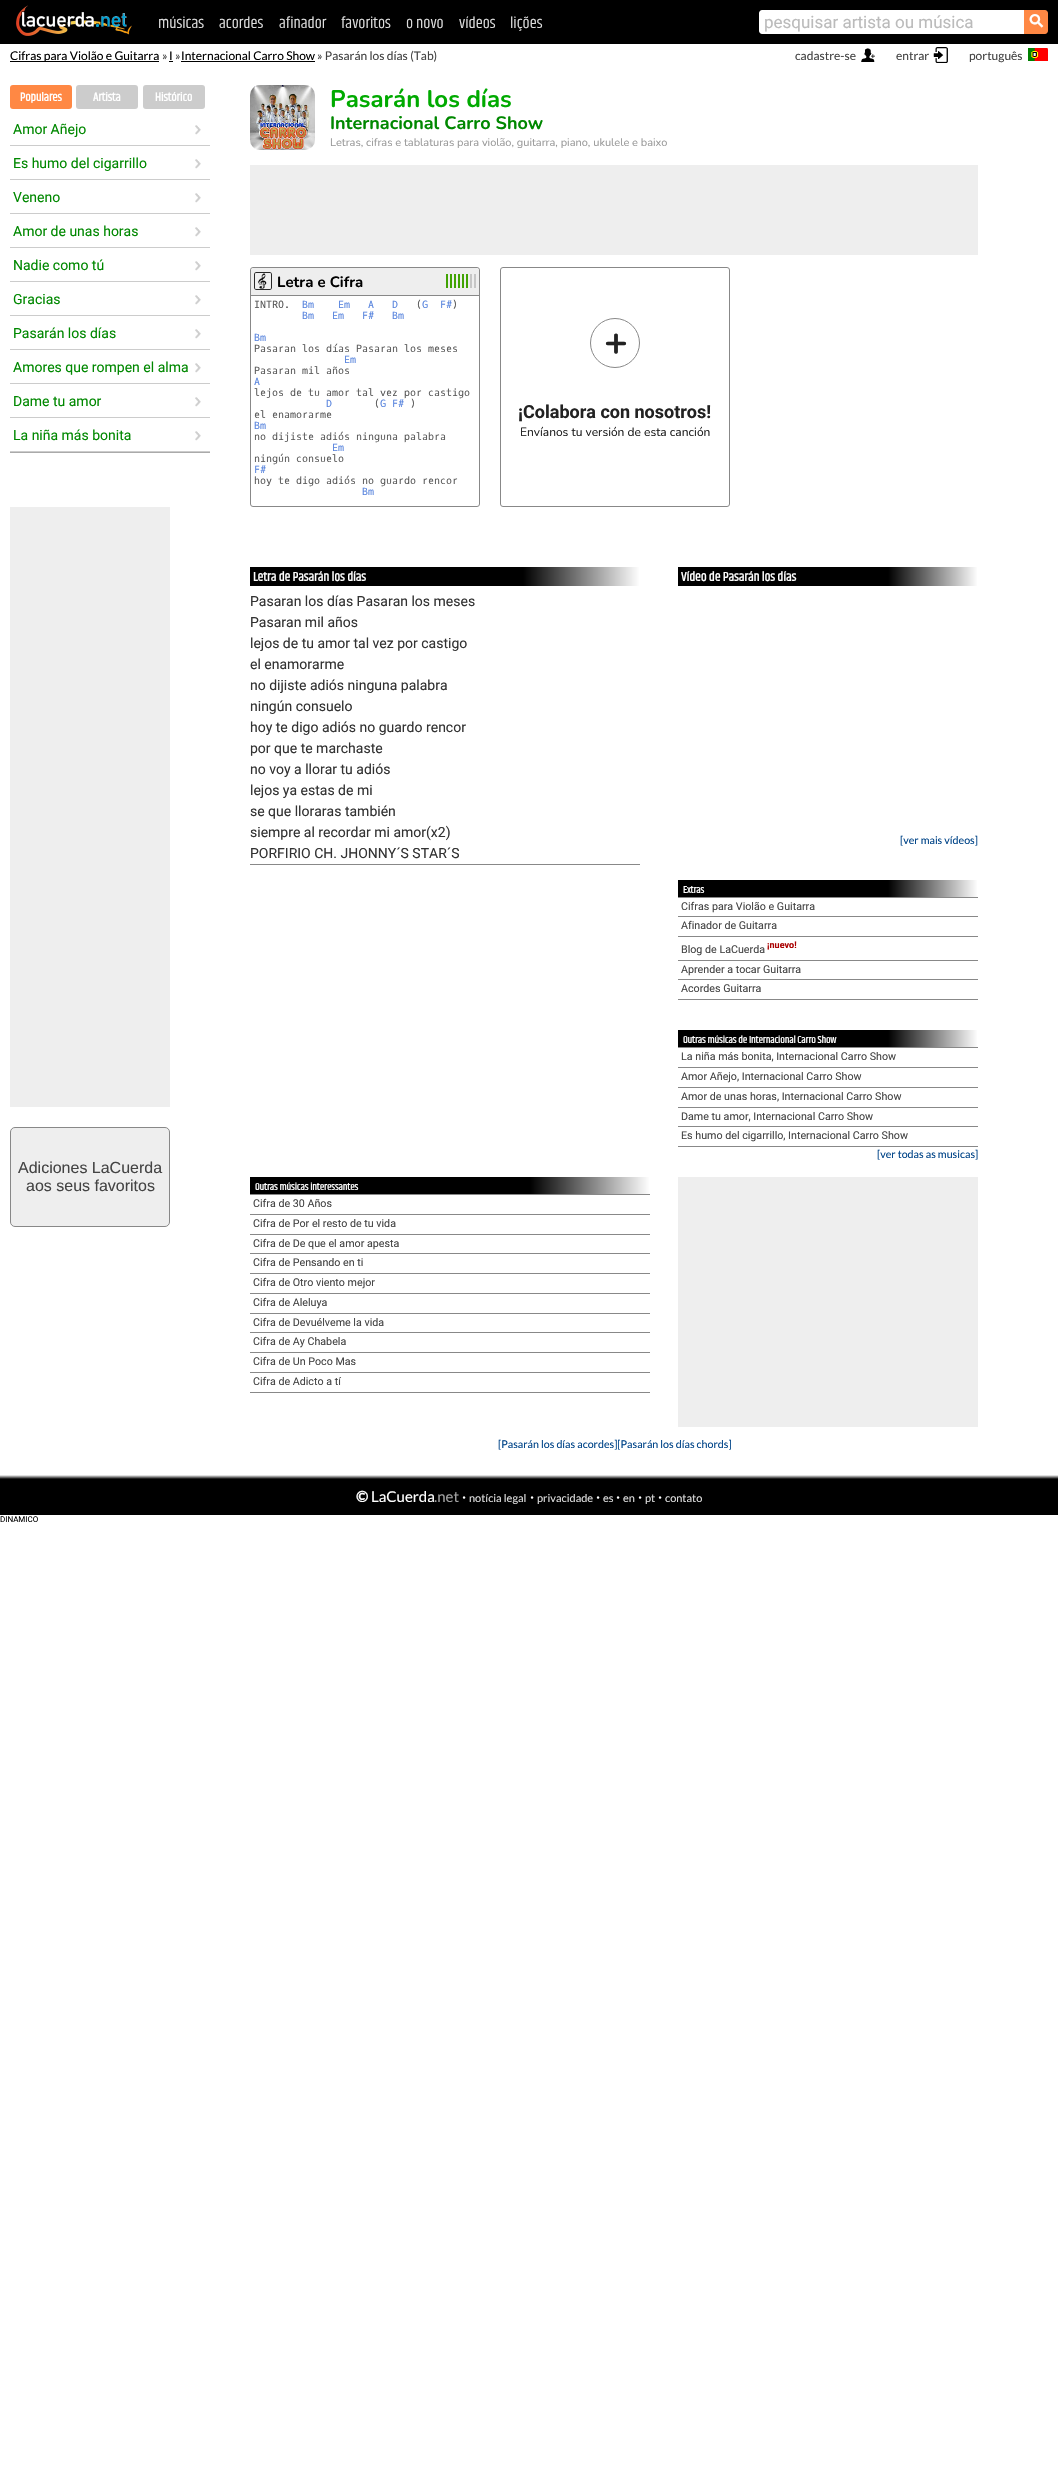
#include "include/core/SkBlurTypes.h"
#include "include/core/SkCanvas.h"
#include "include/core/SkData.h"
#include "include/core/SkFont.h"
#include "include/core/SkFontMgr.h"
#include "include/core/SkImage.h"
#include "include/core/SkMaskFilter.h"
#include "include/core/SkPaint.h"
#include "include/core/SkPathBuilder.h"
#include "include/core/SkTextBlob.h"
#include "include/effects/SkDashPathEffect.h"
#include "include/effects/SkGradientShader.h"
#include "include/utils/SkParsePath.h"

extern sk_sp<SkFontMgr> fontMgr;

void draw(SkCanvas* canvas) {
    SkPaint p;
    p.setAntiAlias(true);
    auto font = [&](const char* family, int weight, float size, bool italic = false) {
        SkFontStyle style(weight, SkFontStyle::kNormal_Width,
            italic ? SkFontStyle::kItalic_Slant : SkFontStyle::kUpright_Slant);
        SkFont result(fontMgr->matchFamilyStyle(family, style), size);
        result.setSubpixel(true);
        return result;
    };
    auto drawPhoto = [&](const char* path, float l, float t, float r, float b) {
        auto image = SkImages::DeferredFromEncodedData(SkData::MakeFromFileName(path));
        canvas->drawImageRect(image, SkRect::MakeLTRB(l, t, r, b), SkSamplingOptions());
    };
    canvas->clear(0xFFFFFFFF);
    p.setColor(0xFF000000);
    canvas->drawRect(SkRect::MakeLTRB(0, 0, 1058, 44), p);
    drawPhoto("media/1.png", 16, 5, 132, 36);
    auto font1 = font("Khand", 400, 16);
    p.setColor(0xFFDDDDDD);
    {
        const struct { const char* s; float x, y; } items[] = {
            {"músicas", 158, 28},
            {"acordes", 219, 28},
            {"afinador", 279, 28},
            {"favoritos", 341, 28},
            {"o novo", 406, 28},
            {"vídeos", 459, 28},
            {"lições", 510, 28},
        };
        for (auto [s, x, y] : items) {
            canvas->drawString(s, x, y, font1, p);
        }
    }
    p.setColor(0xFFFFFFFF);
    canvas->drawPath(SkPathBuilder().moveTo(762, 10).lineTo(1024, 10).lineTo(1024, 34).lineTo(762, 34).cubicTo(760.5f, 34, 759, 32.5f, 759, 31).lineTo(759, 13).cubicTo(759, 11.5f, 760.5f, 10, 762, 10).close().detach(), p);
    auto font2 = font("Roboto", 400, 17);
    p.setColor(0xFFBBBBBB);
    canvas->drawString("pesquisar artista ou música", 764, 28, font2, p);
    p.setColor(0xFFFF8844);
    canvas->drawPath(SkPathBuilder().moveTo(1024, 10).lineTo(1045, 10).cubicTo(1046.5f, 10, 1048, 11.5f, 1048, 13).lineTo(1048, 31).cubicTo(1048, 32.5f, 1046.5f, 34, 1045, 34).lineTo(1024, 34).close().detach(), p);
    auto font3 = font("DejaVu Sans", 700, 18);
    p.setColor(0xFFFFFFFF);
    canvas->save();
    canvas->rotate(-45, 1036, 30);
    canvas->drawString("⚲", 1036, 30, font3, p);
    canvas->restore();
    p.setColor(0xFF000000);
    canvas->drawRect(SkRect::MakeLTRB(10, 61, 159, 62), p);
    auto font4 = font("Lato", 400, 12);
    canvas->drawString("Cifras para Violão e Guitarra", 10, 60, font4, p);
    p.setColor(0xFF444444);
    canvas->drawString("»", 162, 60, font4, p);
    p.setColor(0xFF000000);
    canvas->drawString("I", 169, 60, font4, p);
    canvas->drawRect(SkRect::MakeLTRB(169, 61, 173, 62), p);
    p.setColor(0xFF444444);
    canvas->drawString("»", 175, 60, font4, p);
    p.setColor(0xFF000000);
    canvas->drawString("Internacional Carro Show", 181, 60, font4, p);
    canvas->drawRect(SkRect::MakeLTRB(181, 61, 315, 62), p);
    p.setColor(0xFF444444);
    canvas->drawString("» Pasarán los días (Tab)", 317, 60, font4, p);
    drawPhoto("media/2.png", 861, 48, 875, 62);
    canvas->drawString("cadastre-se", 795, 60, font4, p);
    drawPhoto("media/3.png", 933, 47, 948, 63);
    canvas->drawString("entrar", 896, 60, font4, p);
    drawPhoto("media/4.png", 1028, 48, 1048, 61);
    canvas->drawString("português", 969, 60, font4, p);
    p.setColor(0xFFFF8844);
    canvas->drawRoundRect(SkRect::MakeLTRB(10, 85, 72, 109), 3, 3, p);
    auto font5 = font("Khand", 700, 12);
    p.setColor(0xFFFFFFFF);
    canvas->drawString("Populares", 20, 101, font5, p);
    p.setColor(0xFFCCCCCC);
    canvas->drawRoundRect(SkRect::MakeLTRB(76, 85, 138, 109), 3, 3, p);
    p.setColor(0xFFFFFFFF);
    canvas->drawString("Artista", 93, 101, font5, p);
    p.setColor(0xFFCCCCCC);
    canvas->drawRoundRect(SkRect::MakeLTRB(143, 85, 205, 109), 3, 3, p);
    p.setColor(0xFFFFFFFF);
    canvas->drawString("Histórico", 155, 101, font5, p);
    p.setColor(0xFFAAAAAA);
    canvas->drawRect(SkRect::MakeLTRB(10, 452, 210, 453), p);
    drawPhoto("media/5.png", 195, 125, 201, 135);
    p.setColor(0xFFCCCCCC);
    canvas->drawRect(SkRect::MakeLTRB(10, 145, 210, 146), p);
    auto font6 = font("Roboto", 400, 14);
    p.setColor(0xFF008800);
    canvas->drawString("Amor Añejo", 13, 134, font6, p);
    drawPhoto("media/5.png", 195, 159, 201, 169);
    p.setColor(0xFFCCCCCC);
    canvas->drawRect(SkRect::MakeLTRB(10, 179, 210, 180), p);
    p.setColor(0xFF008800);
    canvas->drawString("Es humo del cigarrillo", 13, 168, font6, p);
    drawPhoto("media/5.png", 195, 193, 201, 203);
    p.setColor(0xFFCCCCCC);
    canvas->drawRect(SkRect::MakeLTRB(10, 213, 210, 214), p);
    p.setColor(0xFF008800);
    canvas->drawString("Veneno", 13, 202, font6, p);
    drawPhoto("media/5.png", 195, 227, 201, 237);
    p.setColor(0xFFCCCCCC);
    canvas->drawRect(SkRect::MakeLTRB(10, 247, 210, 248), p);
    p.setColor(0xFF008800);
    canvas->drawString("Amor de unas horas", 13, 236, font6, p);
    drawPhoto("media/5.png", 195, 261, 201, 271);
    p.setColor(0xFFCCCCCC);
    canvas->drawRect(SkRect::MakeLTRB(10, 281, 210, 282), p);
    p.setColor(0xFF008800);
    canvas->drawString("Nadie como tú", 13, 270, font6, p);
    drawPhoto("media/5.png", 195, 295, 201, 305);
    p.setColor(0xFFCCCCCC);
    canvas->drawRect(SkRect::MakeLTRB(10, 315, 210, 316), p);
    p.setColor(0xFF008800);
    canvas->drawString("Gracias", 13, 304, font6, p);
    drawPhoto("media/5.png", 195, 329, 201, 339);
    p.setColor(0xFFCCCCCC);
    canvas->drawRect(SkRect::MakeLTRB(10, 349, 210, 350), p);
    p.setColor(0xFF008800);
    canvas->drawString("Pasarán los días", 13, 338, font6, p);
    drawPhoto("media/5.png", 195, 363, 201, 373);
    p.setColor(0xFFCCCCCC);
    canvas->drawRect(SkRect::MakeLTRB(10, 383, 210, 384), p);
    p.setColor(0xFF008800);
    canvas->drawString("Amores que rompen el alma", 13, 372, font6, p);
    drawPhoto("media/5.png", 195, 397, 201, 407);
    p.setColor(0xFFCCCCCC);
    canvas->drawRect(SkRect::MakeLTRB(10, 417, 210, 418), p);
    p.setColor(0xFF008800);
    canvas->drawString("Dame tu amor", 13, 406, font6, p);
    drawPhoto("media/5.png", 195, 431, 201, 441);
    p.setColor(0xFFCCCCCC);
    canvas->drawRect(SkRect::MakeLTRB(10, 451, 210, 452), p);
    p.setColor(0xFF008800);
    canvas->drawString("La niña más bonita", 13, 440, font6, p);
    p.setColor(0xFFEEEEEE);
    canvas->drawRect(SkRect::MakeLTRB(10, 507, 170, 1107), p);
    canvas->drawRoundRect(SkRect::MakeLTRB(10.5f, 1127.5f, 169.5f, 1226.5f), 4.5f, 4.5f, p);
    p.setStyle(SkPaint::kStroke_Style);
    p.setStrokeWidth(1);
    p.setColor(0xFF888888);
    canvas->drawRoundRect(SkRect::MakeLTRB(10.5f, 1127.5f, 169.5f, 1226.5f), 4.5f, 4.5f, p);
    auto font7 = font("Liberation Sans", 400, 16);
    p.setStyle(SkPaint::kFill_Style);
    p.setColor(0xFF444444);
    canvas->drawString("Adiciones LaCuerda", 18, 1173, font7, p);
    canvas->drawString("aos seus favoritos", 26, 1191, font7, p);
    drawPhoto("media/6.png", 250, 85, 315, 150);
    auto font8 = font("Nunito", 700, 24);
    p.setColor(0xFF00AA00);
    canvas->drawString("Pasarán los días", 330, 107, font8, p);
    auto font9 = font("Nunito", 700, 18);
    p.setColor(0xFF008800);
    canvas->drawString("Internacional Carro Show", 330, 129, font9, p);
    auto font10 = font("Nunito", 400, 11);
    p.setColor(0xFF999999);
    canvas->drawString("Letras, cifras e tablaturas para violão, guitarra, piano, ukulele e baixo", 330, 146, font10, p);
    p.setColor(0xFFEEEEEE);
    canvas->drawRect(SkRect::MakeLTRB(250, 165, 978, 255), p);
    p.setStyle(SkPaint::kStroke_Style);
    p.setColor(0xFF888888);
    canvas->drawRoundRect(SkRect::MakeLTRB(250.5f, 267.5f, 479.5f, 506.5f), 2.5f, 2.5f, p);
    p.setStyle(SkPaint::kFill_Style);
    p.setColor(0xFFEEEEEE);
    canvas->drawPath(SkPathBuilder().moveTo(254, 268).lineTo(476, 268).cubicTo(477.5f, 268, 479, 269.5f, 479, 271).lineTo(479, 295).lineTo(251, 295).lineTo(251, 271).cubicTo(251, 269.5f, 252.5f, 268, 254, 268).close().detach(), p);
    p.setColor(0xFF888888);
    canvas->drawRect(SkRect::MakeLTRB(251, 295, 479, 296), p);
    drawPhoto("media/7.png", 254, 272, 272, 290);
    auto font11 = font("Nunito", 700, 15);
    p.setColor(0xFF000000);
    canvas->drawString("Letra e Cifra", 277, 287, font11, p);
    drawPhoto("media/8.png", 446, 274, 476, 288);
    auto font12 = font("Oxygen Mono", 400, 10);
    p.setColor(0xFF595959);
    canvas->drawString("INTRO.", 254, 308, font12, p);
    p.setColor(0xFF5985DE);
    {
        const struct { const char* s; float x, y; } items[] = {
            {"Bm", 302, 308},
            {"Em", 338, 308},
            {"A", 368, 308},
            {"D", 392, 308},
        };
        for (auto [s, x, y] : items) {
            canvas->drawString(s, x, y, font12, p);
        }
    }
    p.setColor(0xFF595959);
    canvas->drawString("(", 416, 308, font12, p);
    p.setColor(0xFF5985DE);
    canvas->drawString("G", 422, 308, font12, p);
    canvas->drawString("F#", 440, 308, font12, p);
    p.setColor(0xFF595959);
    canvas->drawString(")", 452, 308, font12, p);
    p.setColor(0xFF5985DE);
    {
        const struct { const char* s; float x, y; } items[] = {
            {"Bm", 302, 319},
            {"Em", 332, 319},
            {"F#", 362, 319},
            {"Bm", 392, 319},
            {"Bm", 254, 341},
        };
        for (auto [s, x, y] : items) {
            canvas->drawString(s, x, y, font12, p);
        }
    }
    p.setColor(0xFF595959);
    canvas->drawString("Pasaran los días Pasaran los meses", 254, 352, font12, p);
    p.setColor(0xFF5985DE);
    canvas->drawString("Em", 344, 363, font12, p);
    p.setColor(0xFF595959);
    canvas->drawString("Pasaran mil años", 254, 374, font12, p);
    p.setColor(0xFF5985DE);
    canvas->drawString("A", 254, 385, font12, p);
    p.setColor(0xFF595959);
    canvas->drawString("lejos de tu amor tal vez por castigo", 254, 396, font12, p);
    p.setColor(0xFF5985DE);
    canvas->drawString("D", 326, 407, font12, p);
    p.setColor(0xFF595959);
    canvas->drawString("(", 374, 407, font12, p);
    p.setColor(0xFF5985DE);
    canvas->drawString("G F#", 380, 407, font12, p);
    p.setColor(0xFF595959);
    canvas->drawString(")", 410, 407, font12, p);
    canvas->drawString("el enamorarme", 254, 418, font12, p);
    p.setColor(0xFF5985DE);
    canvas->drawString("Bm", 254, 429, font12, p);
    p.setColor(0xFF595959);
    canvas->drawString("no dijiste adiós ninguna palabra", 254, 440, font12, p);
    p.setColor(0xFF5985DE);
    canvas->drawString("Em", 332, 451, font12, p);
    p.setColor(0xFF595959);
    canvas->drawString("ningún consuelo", 254, 462, font12, p);
    p.setColor(0xFF5985DE);
    canvas->drawString("F#", 254, 473, font12, p);
    p.setColor(0xFF595959);
    canvas->drawString("hoy te digo adiós no guardo rencor", 254, 484, font12, p);
    p.setColor(0xFF5985DE);
    canvas->drawString("Bm", 362, 495, font12, p);
    p.setStyle(SkPaint::kStroke_Style);
    p.setColor(0xFF888888);
    canvas->drawRoundRect(SkRect::MakeLTRB(500.5f, 267.5f, 729.5f, 506.5f), 2.5f, 2.5f, p);
    canvas->drawCircle(615, 343, 24.5f, p);
    auto font13 = font("Nunito", 700, 40);
    p.setStyle(SkPaint::kFill_Style);
    p.setColor(0xFF222222);
    canvas->drawString("+", 604, 355, font13, p);
    auto font14 = font("Roboto", 700, 18);
    canvas->drawString("¡Colabora con nosotros!", 518, 418, font14, p);
    auto font15 = font("Nunito", 400, 12);
    canvas->drawString("Envíanos tu versión de esta canción", 520, 436, font15, p);
    {
        const SkColor colors[] = {0xFF000000, 0xFF000000, 0xFFFFFFFF};
        const float stops[] = {0, 0.7f, 1};
        const SkPoint ends[] = {{250, 577}, {640, 577}};
        p.setShader(SkGradientShader::MakeLinear(ends, colors, stops, 3, SkTileMode::kClamp));
        p.setAlpha(255);
    }
    canvas->drawRect(SkRect::MakeLTRB(250, 567, 639, 586), p);
    auto font16 = font("Khand", 700, 13);
    p.setShader(nullptr);
    p.setColor(0xFFFFFFFF);
    canvas->drawString("Letra de Pasarán los días", 253, 581, font16, p);
    p.setColor(0xFF888888);
    canvas->drawRect(SkRect::MakeLTRB(250, 864, 640, 865), p);
    p.setColor(0xFF333333);
    {
        const struct { const char* s; float x, y; } items[] = {
            {"Pasaran los días Pasaran los meses", 250, 606},
            {"Pasaran mil años", 250, 627},
            {"lejos de tu amor tal vez por castigo", 250, 648},
            {"el enamorarme", 250, 669},
            {"no dijiste adiós ninguna palabra", 250, 690},
            {"ningún consuelo", 250, 711},
            {"hoy te digo adiós no guardo rencor", 250, 732},
            {"por que te marchaste", 250, 753},
            {"no voy a llorar tu adiós", 250, 774},
            {"lejos ya estas de mi", 250, 795},
            {"se que lloraras también", 250, 816},
            {"siempre al recordar mi amor(x2)", 250, 837},
            {"PORFIRIO CH. JHONNY´S STAR´S", 250, 858},
        };
        for (auto [s, x, y] : items) {
            canvas->drawString(s, x, y, font6, p);
        }
    }
    {
        const SkColor colors[] = {0xFF000000, 0xFF000000, 0xFFFFFFFF};
        const float stops[] = {0, 0.7f, 1};
        const SkPoint ends[] = {{678, 577}, {978, 577}};
        p.setShader(SkGradientShader::MakeLinear(ends, colors, stops, 3, SkTileMode::kClamp));
        p.setAlpha(255);
    }
    canvas->drawRect(SkRect::MakeLTRB(678, 567, 977, 586), p);
    p.setShader(nullptr);
    p.setColor(0xFFFFFFFF);
    canvas->drawString("Vídeo de Pasarán los días", 681, 581, font16, p);
    auto font17 = font("Lato", 400, 10.7f);
    p.setColor(0xFF004488);
    canvas->drawString("[ver mais vídeos]", 900, 844, font17, p);
    {
        const SkColor colors[] = {0xFF000000, 0xFF000000, 0xFFFFFFFF};
        const float stops[] = {0, 0.7f, 1};
        const SkPoint ends[] = {{678, 851}, {978, 851}};
        p.setShader(SkGradientShader::MakeLinear(ends, colors, stops, 3, SkTileMode::kClamp));
        p.setAlpha(255);
    }
    canvas->drawRect(SkRect::MakeLTRB(678, 880, 977, 897), p);
    p.setShader(nullptr);
    p.setColor(0xFF888888);
    canvas->drawRect(SkRect::MakeLTRB(678, 897, 978, 898), p);
    auto font18 = font("Khand", 700, 10);
    p.setColor(0xFFFFFFFF);
    canvas->drawString("Extras", 683, 893, font18, p);
    p.setColor(0xFF888888);
    canvas->drawRect(SkRect::MakeLTRB(678, 916, 978, 917), p);
    auto font19 = font("Roboto", 400, 10.7f);
    p.setColor(0xFF444444);
    canvas->drawString("Cifras para Violão e Guitarra", 681, 910, font19, p);
    p.setColor(0xFF888888);
    canvas->drawRect(SkRect::MakeLTRB(678, 936, 978, 937), p);
    p.setColor(0xFF444444);
    canvas->drawString("Afinador de Guitarra", 681, 929, font19, p);
    p.setColor(0xFF888888);
    canvas->drawRect(SkRect::MakeLTRB(678, 960, 978, 961), p);
    p.setColor(0xFF444444);
    canvas->drawString("Blog de LaCuerda", 681, 953, font19, p);
    auto font20 = font("Roboto", 700, 9);
    p.setColor(0xFFAA0000);
    canvas->drawString("¡nuevo!", 767, 948, font20, p);
    p.setColor(0xFF888888);
    canvas->drawRect(SkRect::MakeLTRB(678, 979, 978, 980), p);
    p.setColor(0xFF444444);
    canvas->drawString("Aprender a tocar Guitarra", 681, 973, font19, p);
    p.setColor(0xFF888888);
    canvas->drawRect(SkRect::MakeLTRB(678, 999, 978, 1000), p);
    p.setColor(0xFF444444);
    canvas->drawString("Acordes Guitarra", 681, 992, font19, p);
    {
        const SkColor colors[] = {0xFF000000, 0xFF000000, 0xFFFFFFFF};
        const float stops[] = {0, 0.7f, 1};
        const SkPoint ends[] = {{678, 1001}, {978, 1001}};
        p.setShader(SkGradientShader::MakeLinear(ends, colors, stops, 3, SkTileMode::kClamp));
        p.setAlpha(255);
    }
    canvas->drawRect(SkRect::MakeLTRB(678, 1030, 977, 1047), p);
    p.setShader(nullptr);
    p.setColor(0xFF888888);
    canvas->drawRect(SkRect::MakeLTRB(678, 1047, 978, 1048), p);
    p.setColor(0xFFFFFFFF);
    canvas->drawString("Outras músicas de Internacional Carro Show", 683, 1043, font18, p);
    p.setColor(0xFF888888);
    canvas->drawRect(SkRect::MakeLTRB(678, 1067, 978, 1068), p);
    p.setColor(0xFF444444);
    canvas->drawString("La niña más bonita, Internacional Carro Show", 681, 1060, font19, p);
    p.setColor(0xFF888888);
    canvas->drawRect(SkRect::MakeLTRB(678, 1087, 978, 1088), p);
    p.setColor(0xFF444444);
    canvas->drawString("Amor Añejo, Internacional Carro Show", 681, 1080, font19, p);
    p.setColor(0xFF888888);
    canvas->drawRect(SkRect::MakeLTRB(678, 1107, 978, 1108), p);
    p.setColor(0xFF444444);
    canvas->drawString("Amor de unas horas, Internacional Carro Show", 681, 1100, font19, p);
    p.setColor(0xFF888888);
    canvas->drawRect(SkRect::MakeLTRB(678, 1126, 978, 1127), p);
    p.setColor(0xFF444444);
    canvas->drawString("Dame tu amor, Internacional Carro Show", 681, 1120, font19, p);
    p.setColor(0xFF888888);
    canvas->drawRect(SkRect::MakeLTRB(678, 1146, 978, 1147), p);
    p.setColor(0xFF444444);
    canvas->drawString("Es humo del cigarrillo, Internacional Carro Show", 681, 1139, font19, p);
    p.setColor(0xFF004488);
    canvas->drawString("[ver todas as musicas]", 877, 1158, font17, p);
    {
        const SkColor colors[] = {0xFF000000, 0xFF000000, 0xFFFFFFFF};
        const float stops[] = {0, 0.7f, 1};
        const SkPoint ends[] = {{250, 1148}, {650, 1148}};
        p.setShader(SkGradientShader::MakeLinear(ends, colors, stops, 3, SkTileMode::kClamp));
        p.setAlpha(255);
    }
    canvas->drawRect(SkRect::MakeLTRB(250, 1177, 649, 1194), p);
    p.setShader(nullptr);
    p.setColor(0xFF888888);
    canvas->drawRect(SkRect::MakeLTRB(250, 1194, 650, 1195), p);
    p.setColor(0xFFFFFFFF);
    canvas->drawString("Outras músicas interessantes", 255, 1190, font18, p);
    p.setColor(0xFF888888);
    canvas->drawRect(SkRect::MakeLTRB(250, 1214, 650, 1215), p);
    p.setColor(0xFF444444);
    canvas->drawString("Cifra de 30 Años", 253, 1207, font19, p);
    p.setColor(0xFF888888);
    canvas->drawRect(SkRect::MakeLTRB(250, 1234, 650, 1235), p);
    p.setColor(0xFF444444);
    canvas->drawString("Cifra de Por el resto de tu vida", 253, 1227, font19, p);
    p.setColor(0xFF888888);
    canvas->drawRect(SkRect::MakeLTRB(250, 1253, 650, 1254), p);
    p.setColor(0xFF444444);
    canvas->drawString("Cifra de De que el amor apesta", 253, 1247, font19, p);
    p.setColor(0xFF888888);
    canvas->drawRect(SkRect::MakeLTRB(250, 1273, 650, 1274), p);
    p.setColor(0xFF444444);
    canvas->drawString("Cifra de Pensando en ti", 253, 1266, font19, p);
    p.setColor(0xFF888888);
    canvas->drawRect(SkRect::MakeLTRB(250, 1293, 650, 1294), p);
    p.setColor(0xFF444444);
    canvas->drawString("Cifra de Otro viento mejor", 253, 1286, font19, p);
    p.setColor(0xFF888888);
    canvas->drawRect(SkRect::MakeLTRB(250, 1313, 650, 1314), p);
    p.setColor(0xFF444444);
    canvas->drawString("Cifra de Aleluya", 253, 1306, font19, p);
    p.setColor(0xFF888888);
    canvas->drawRect(SkRect::MakeLTRB(250, 1332, 650, 1333), p);
    p.setColor(0xFF444444);
    canvas->drawString("Cifra de Devuélveme la vida", 253, 1326, font19, p);
    p.setColor(0xFF888888);
    canvas->drawRect(SkRect::MakeLTRB(250, 1352, 650, 1353), p);
    p.setColor(0xFF444444);
    canvas->drawString("Cifra de Ay Chabela", 253, 1345, font19, p);
    p.setColor(0xFF888888);
    canvas->drawRect(SkRect::MakeLTRB(250, 1372, 650, 1373), p);
    p.setColor(0xFF444444);
    canvas->drawString("Cifra de Un Poco Mas", 253, 1365, font19, p);
    p.setColor(0xFF888888);
    canvas->drawRect(SkRect::MakeLTRB(250, 1392, 650, 1393), p);
    p.setColor(0xFF444444);
    canvas->drawString("Cifra de Adicto a tí", 253, 1385, font19, p);
    p.setColor(0xFFEEEEEE);
    canvas->drawRect(SkRect::MakeLTRB(678, 1177, 978, 1427), p);
    p.setColor(0xFF004488);
    canvas->drawString("[Pasarán los días acordes][Pasarán los días chords]", 498, 1448, font17, p);
    {
        const SkColor colors[] = {0xFFFFFFFF, 0xFF000000};
        const float stops[] = {0, 0.1f};
        const SkPoint ends[] = {{0, 1475}, {0, 1515}};
        p.setShader(SkGradientShader::MakeLinear(ends, colors, stops, 2, SkTileMode::kClamp));
        p.setAlpha(255);
    }
    canvas->drawRect(SkRect::MakeLTRB(0, 1475, 1058, 1515), p);
    auto font21 = font("Lato", 700, 15);
    p.setShader(nullptr);
    p.setColor(0xFFFFFFFF);
    canvas->drawString("©", 356, 1502, font21, p);
    auto font22 = font("Lato", 400, 15);
    canvas->drawString("LaCuerda", 371, 1502, font22, p);
    p.setColor(0xFFA0A0A0);
    canvas->drawString(".net", 434, 1502, font22, p);
    p.setColor(0xFFFFFFFF);
    canvas->drawString("·", 462, 1502, font22, p);
    auto font23 = font("Lato", 400, 11);
    p.setColor(0xFFDDDDDD);
    canvas->drawString("notícia legal", 469, 1502, font23, p);
    p.setColor(0xFFFFFFFF);
    canvas->drawString("·", 530, 1502, font22, p);
    p.setColor(0xFFDDDDDD);
    canvas->drawString("privacidade", 537, 1502, font23, p);
    p.setColor(0xFFFFFFFF);
    canvas->drawString("·", 596, 1502, font22, p);
    p.setColor(0xFFDDDDDD);
    canvas->drawString("es", 603, 1502, font23, p);
    p.setColor(0xFFFFFFFF);
    canvas->drawString("·", 616, 1502, font22, p);
    p.setColor(0xFFDDDDDD);
    canvas->drawString("en", 623, 1502, font23, p);
    p.setColor(0xFFFFFFFF);
    canvas->drawString("·", 638, 1502, font22, p);
    p.setColor(0xFFDDDDDD);
    canvas->drawString("pt", 645, 1502, font23, p);
    p.setColor(0xFFFFFFFF);
    canvas->drawString("·", 658, 1502, font22, p);
    p.setColor(0xFFDDDDDD);
    canvas->drawString("contato", 665, 1502, font23, p);
    auto font24 = font("Roboto", 400, 8);
    p.setColor(0xFF000000);
    canvas->drawString("DINAMICO", 0, 1522, font24, p);
}
